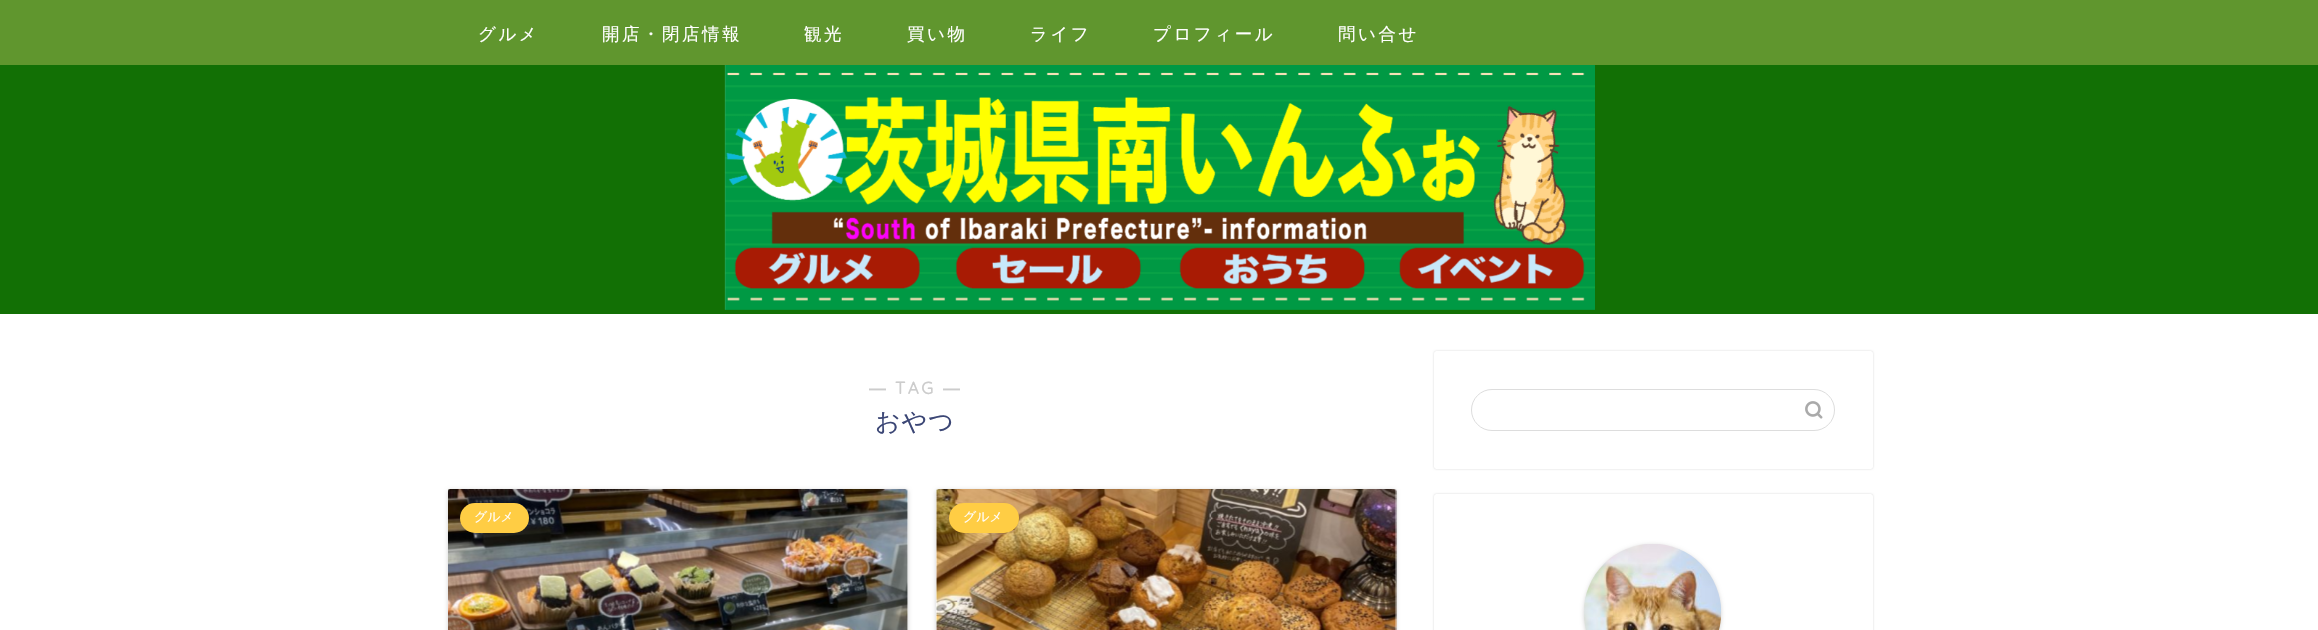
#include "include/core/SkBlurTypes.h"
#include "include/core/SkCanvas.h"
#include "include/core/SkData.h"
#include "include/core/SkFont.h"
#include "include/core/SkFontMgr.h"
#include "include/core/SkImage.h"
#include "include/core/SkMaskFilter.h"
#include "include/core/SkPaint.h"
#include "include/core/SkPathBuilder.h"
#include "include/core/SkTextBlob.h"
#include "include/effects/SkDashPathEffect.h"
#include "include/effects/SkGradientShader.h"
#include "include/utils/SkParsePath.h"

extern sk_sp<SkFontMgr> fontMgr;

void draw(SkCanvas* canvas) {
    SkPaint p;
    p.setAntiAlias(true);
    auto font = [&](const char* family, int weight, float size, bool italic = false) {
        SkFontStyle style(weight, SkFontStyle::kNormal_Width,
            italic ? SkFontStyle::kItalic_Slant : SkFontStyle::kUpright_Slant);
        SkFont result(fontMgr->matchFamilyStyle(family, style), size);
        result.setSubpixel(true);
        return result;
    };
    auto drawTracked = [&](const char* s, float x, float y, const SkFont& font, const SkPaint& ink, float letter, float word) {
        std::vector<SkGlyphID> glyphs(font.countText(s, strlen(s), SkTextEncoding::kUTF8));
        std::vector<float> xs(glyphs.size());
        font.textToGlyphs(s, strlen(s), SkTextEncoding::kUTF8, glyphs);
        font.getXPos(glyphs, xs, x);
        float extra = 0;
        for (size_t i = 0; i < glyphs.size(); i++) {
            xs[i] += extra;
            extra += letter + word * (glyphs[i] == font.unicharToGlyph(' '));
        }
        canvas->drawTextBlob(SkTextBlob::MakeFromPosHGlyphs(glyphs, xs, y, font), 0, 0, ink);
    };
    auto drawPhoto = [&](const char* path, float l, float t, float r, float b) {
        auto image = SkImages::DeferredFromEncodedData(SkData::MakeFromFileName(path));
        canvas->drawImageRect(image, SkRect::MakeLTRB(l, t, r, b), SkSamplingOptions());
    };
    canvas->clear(0xFFFFFFFF);
    p.setColor(0xFF60962E);
    canvas->drawRect(SkRect::MakeLTRB(0, 0, 2318, 65), p);
    auto font1 = font("WenQuanYi Zen Hei", 500, 17.5f);
    p.setColor(0xFFFFFFFF);
    {
        const struct { const char* s; float x, y; } items[] = {
            {"グルメ", 478, 40},
            {"開店・閉店情報", 602, 40},
            {"観光", 804, 40},
            {"買い物", 907, 40},
            {"ライフ", 1030, 40},
            {"プロフィール", 1153, 40},
            {"問い合せ", 1338, 40},
        };
        for (auto [s, x, y] : items) {
            drawTracked(s, x, y, font1, p, 2.5f, 0);
        }
    }
    p.setColor(0xFF127005);
    canvas->drawRect(SkRect::MakeLTRB(0, 65, 2318, 314), p);
    drawPhoto("media/1.png", 724, 65, 1595, 310);
    auto font2 = font("Liberation Sans", 700, 17);
    p.setColor(0xFFCCCCCC);
    drawTracked("―", 869, 394, font2, p, 2.5f, 0);
    auto font3 = font("Quicksand", 700, 17);
    drawTracked("TAG", 895, 394, font3, p, 2.5f, 0);
    drawTracked("―", 943, 394, font2, p, 2.5f, 0);
    auto font4 = font("WenQuanYi Zen Hei", 500, 25);
    p.setColor(0xFF3B4675);
    drawTracked("おやつ", 875, 430, font4, p, 1, 0);
    p.setColor(0x2E000000);
    p.setMaskFilter(SkMaskFilter::MakeBlur(kNormal_SkBlurStyle, 2));
    canvas->drawRoundRect(SkRect::MakeLTRB(448, 490, 908, 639), 2.5f, 2.5f, p);
    p.setMaskFilter(nullptr);
    p.setColor(0xFFFFFFFF);
    canvas->drawRoundRect(SkRect::MakeLTRB(448, 489, 908, 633), 2.5f, 2.5f, p);
    drawPhoto("media/2.png", 448, 489, 908, 630);
    p.setColor(0xFFFFCD44);
    canvas->drawRoundRect(SkRect::MakeLTRB(460, 503, 529, 533), 15, 15, p);
    auto font5 = font("WenQuanYi Zen Hei", 500, 13);
    p.setColor(0xFFFFFFFF);
    canvas->drawString("グルメ", 474, 521, font5, p);
    p.setColor(0x2E000000);
    p.setMaskFilter(SkMaskFilter::MakeBlur(kNormal_SkBlurStyle, 2));
    canvas->drawRoundRect(SkRect::MakeLTRB(936, 490, 1396, 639), 2.5f, 2.5f, p);
    p.setMaskFilter(nullptr);
    p.setColor(0xFFFFFFFF);
    canvas->drawRoundRect(SkRect::MakeLTRB(936, 489, 1396, 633), 2.5f, 2.5f, p);
    drawPhoto("media/3.png", 936, 489, 1397, 630);
    p.setColor(0xFFFFCD44);
    canvas->drawRoundRect(SkRect::MakeLTRB(949, 503, 1019, 533), 15, 15, p);
    p.setColor(0xFFFFFFFF);
    canvas->drawString("グルメ", 963, 521, font5, p);
    p.setColor(0x2E000000);
    p.setMaskFilter(SkMaskFilter::MakeBlur(kNormal_SkBlurStyle, 1));
    canvas->drawRoundRect(SkRect::MakeLTRB(1434, 351, 1873, 469), 2.5f, 2.5f, p);
    p.setMaskFilter(nullptr);
    p.setColor(0xFFFFFFFF);
    canvas->drawRoundRect(SkRect::MakeLTRB(1434, 351, 1873, 469), 2.5f, 2.5f, p);
    p.setStyle(SkPaint::kStroke_Style);
    p.setStrokeWidth(1);
    p.setColor(0xFFDDDDDD);
    canvas->drawRoundRect(SkRect::MakeLTRB(1471.5f, 389.5f, 1834.5f, 430.5f), 20.5f, 20.5f, p);
    drawPhoto("media/4.png", 1805, 401, 1823, 419);
    p.setStyle(SkPaint::kFill_Style);
    p.setColor(0x2E000000);
    p.setMaskFilter(SkMaskFilter::MakeBlur(kNormal_SkBlurStyle, 1));
    canvas->drawRoundRect(SkRect::MakeLTRB(1434, 494, 1873, 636), 2.5f, 2.5f, p);
    p.setMaskFilter(nullptr);
    p.setColor(0xFFFFFFFF);
    canvas->drawRoundRect(SkRect::MakeLTRB(1434, 494, 1873, 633), 2.5f, 2.5f, p);
    p.setColor(0x2E000000);
    p.setMaskFilter(SkMaskFilter::MakeBlur(kNormal_SkBlurStyle, 2));
    canvas->drawRoundRect(SkRect::MakeLTRB(1584, 545, 1721, 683), 68.5f, 68.5f, p);
    p.setMaskFilter(nullptr);
    drawPhoto("media/5.png", 1584, 544, 1721, 630);
}
